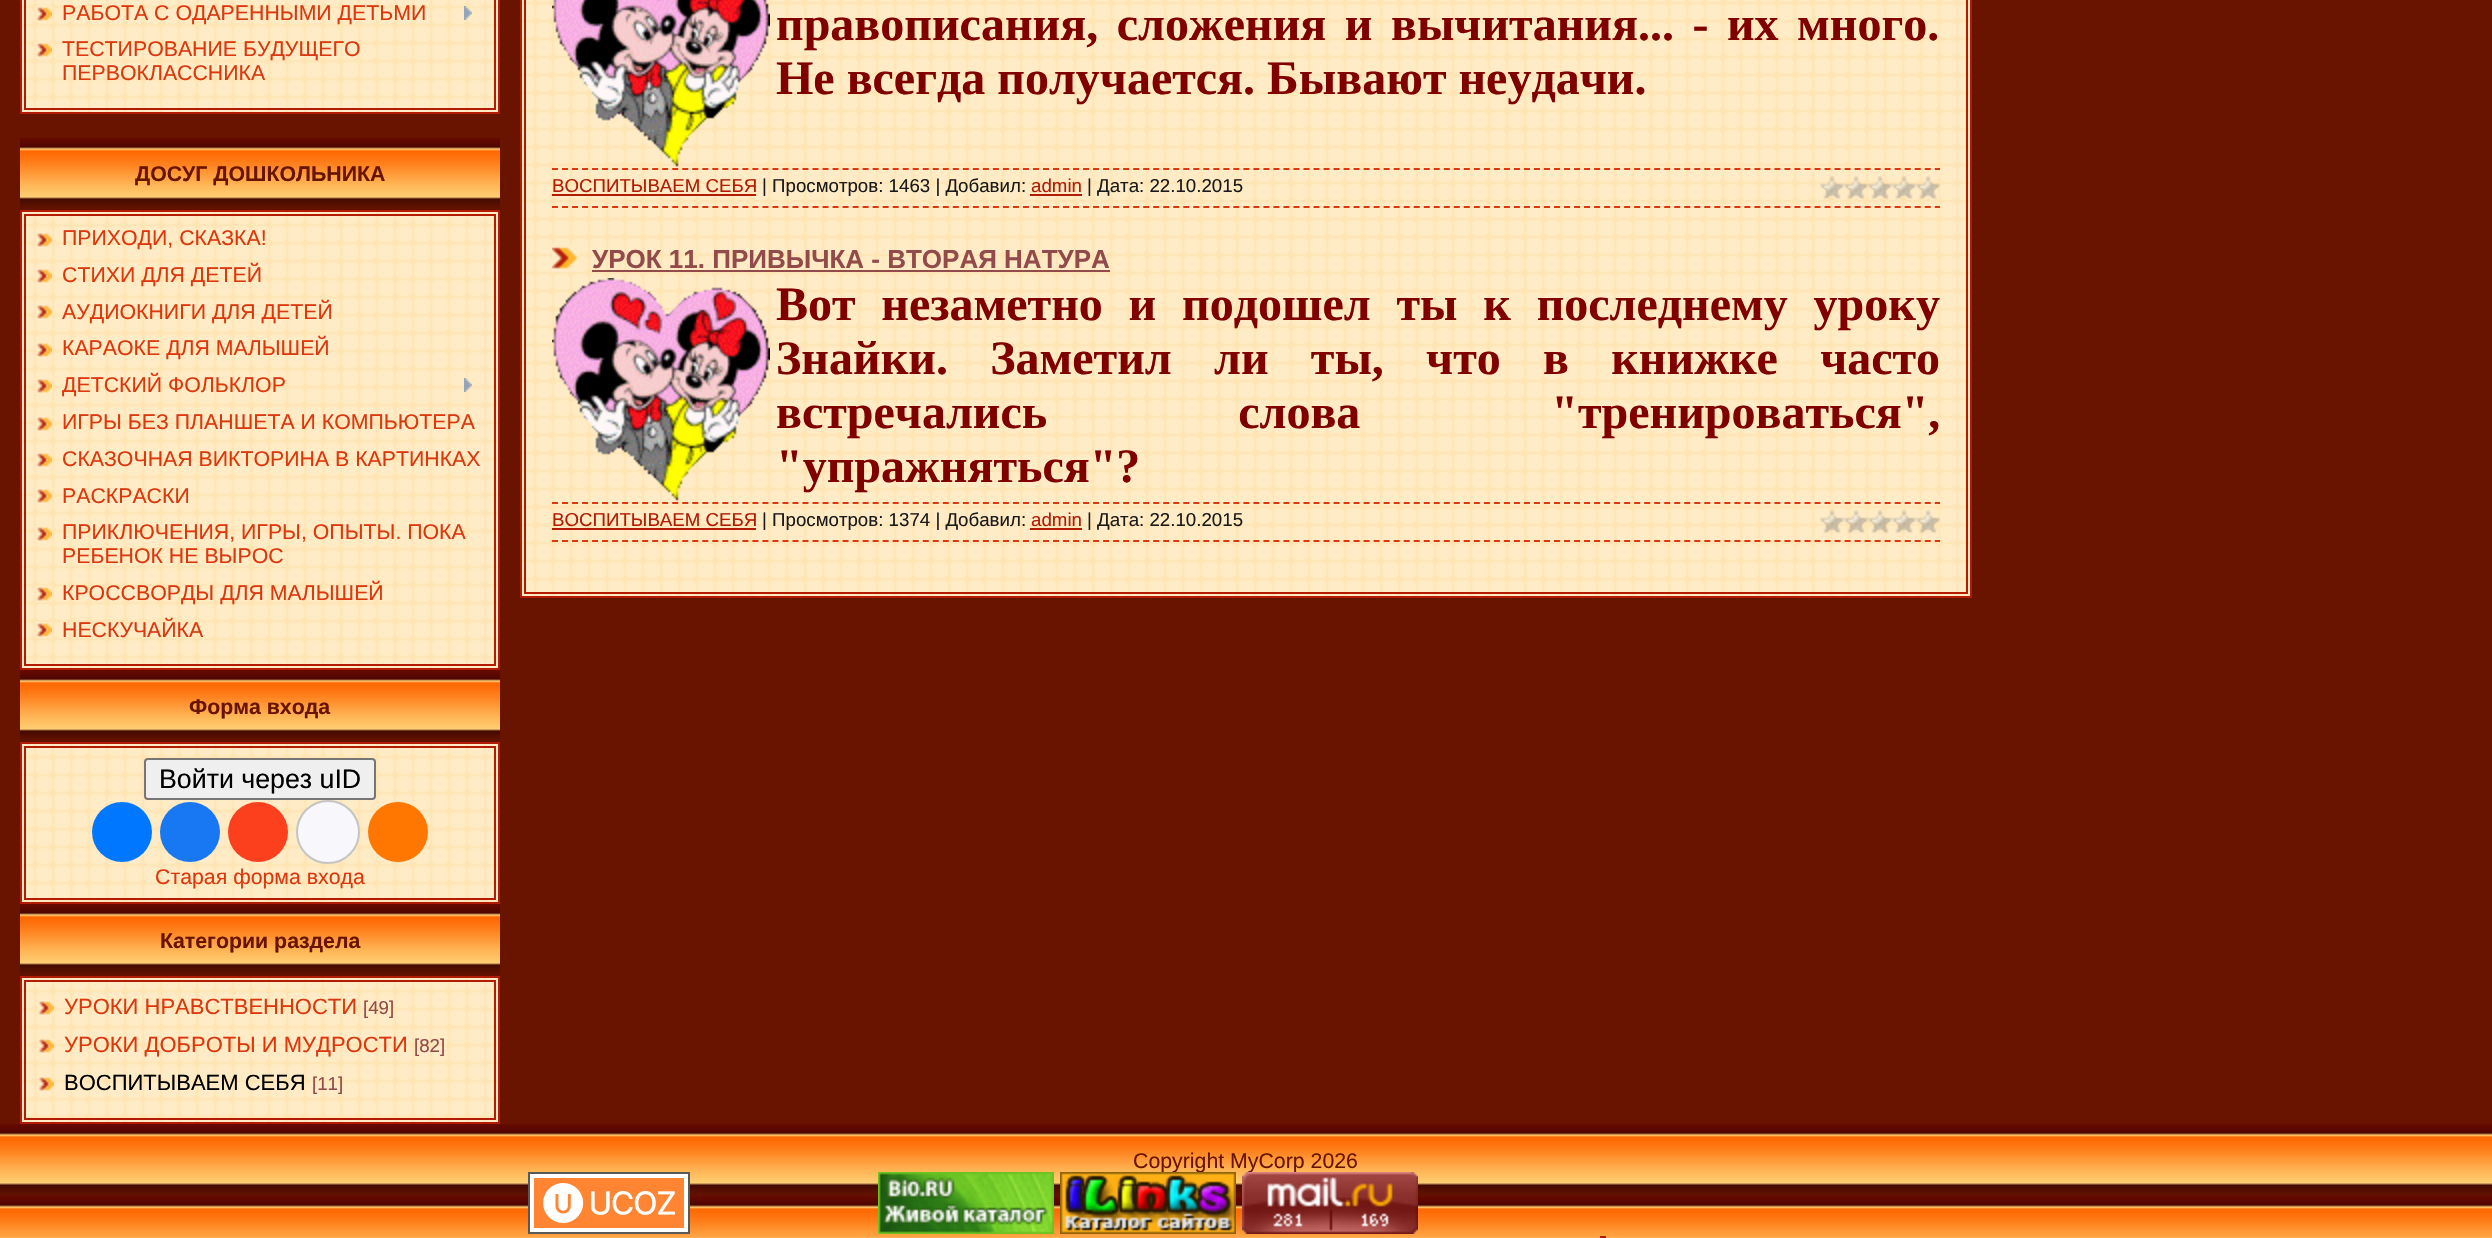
#include "include/core/SkBlurTypes.h"
#include "include/core/SkCanvas.h"
#include "include/core/SkData.h"
#include "include/core/SkFont.h"
#include "include/core/SkFontMgr.h"
#include "include/core/SkImage.h"
#include "include/core/SkMaskFilter.h"
#include "include/core/SkPaint.h"
#include "include/core/SkPathBuilder.h"
#include "include/core/SkTextBlob.h"
#include "include/effects/SkDashPathEffect.h"
#include "include/effects/SkGradientShader.h"
#include "include/utils/SkParsePath.h"

extern sk_sp<SkFontMgr> fontMgr;

void draw(SkCanvas* canvas) {
    SkPaint p;
    p.setAntiAlias(true);
    auto font = [&](const char* family, int weight, float size, bool italic = false) {
        SkFontStyle style(weight, SkFontStyle::kNormal_Width,
            italic ? SkFontStyle::kItalic_Slant : SkFontStyle::kUpright_Slant);
        SkFont result(fontMgr->matchFamilyStyle(family, style), size);
        result.setSubpixel(true);
        return result;
    };
    auto drawTracked = [&](const char* s, float x, float y, const SkFont& font, const SkPaint& ink, float letter, float word) {
        std::vector<SkGlyphID> glyphs(font.countText(s, strlen(s), SkTextEncoding::kUTF8));
        std::vector<float> xs(glyphs.size());
        font.textToGlyphs(s, strlen(s), SkTextEncoding::kUTF8, glyphs);
        font.getXPos(glyphs, xs, x);
        float extra = 0;
        for (size_t i = 0; i < glyphs.size(); i++) {
            xs[i] += extra;
            extra += letter + word * (glyphs[i] == font.unicharToGlyph(' '));
        }
        canvas->drawTextBlob(SkTextBlob::MakeFromPosHGlyphs(glyphs, xs, y, font), 0, 0, ink);
    };
    auto drawPhoto = [&](const char* path, float l, float t, float r, float b) {
        auto image = SkImages::DeferredFromEncodedData(SkData::MakeFromFileName(path));
        canvas->drawImageRect(image, SkRect::MakeLTRB(l, t, r, b), SkSamplingOptions());
    };
    canvas->clear(0xFF691400);
    drawPhoto("media/1.png", 22, 0, 498, 112);
    p.setStyle(SkPaint::kStroke_Style);
    p.setStrokeWidth(2);
    p.setColor(0xFFB21B04);
    canvas->drawRect(SkRect::MakeLTRB(21, -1, 499, 113), p);
    canvas->drawRect(SkRect::MakeLTRB(25, -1, 495, 109), p);
    drawPhoto("media/2.png", 36, 6, 52, 22);
    auto font1 = font("Liberation Sans", 400, 21.3f);
    p.setStyle(SkPaint::kFill_Style);
    p.setColor(0xFFDC370D);
    canvas->drawString("РАБОТА С ОДАРЕННЫМИ ДЕТЬМИ", 62, 20, font1, p);
    drawPhoto("media/3.png", 464, 6, 472, 20);
    drawPhoto("media/2.png", 36, 42, 52, 58);
    canvas->drawString("ТЕСТИРОВАНИЕ БУДУЩЕГО", 62, 56, font1, p);
    canvas->drawString("ПЕРВОКЛАССНИКА", 62, 80, font1, p);
    drawPhoto("media/4.png", 20, 138, 500, 210);
    auto font2 = font("Liberation Sans", 700, 21.3f);
    p.setColor(0xFF691400);
    canvas->drawString("ДОСУГ ДОШКОЛЬНИКА", 135, 181, font2, p);
    drawPhoto("media/5.png", 22, 212, 498, 668);
    p.setStyle(SkPaint::kStroke_Style);
    p.setColor(0xFFB21B04);
    canvas->drawRect(SkRect::MakeLTRB(21, 211, 499, 669), p);
    canvas->drawRect(SkRect::MakeLTRB(25, 215, 495, 665), p);
    drawPhoto("media/2.png", 36, 232, 52, 248);
    p.setStyle(SkPaint::kFill_Style);
    p.setColor(0xFFDC370D);
    canvas->drawString("ПРИХОДИ, СКАЗКА!", 62, 245, font1, p);
    drawPhoto("media/2.png", 36, 268, 52, 284);
    canvas->drawString("СТИХИ ДЛЯ ДЕТЕЙ", 62, 282, font1, p);
    drawPhoto("media/2.png", 36, 304, 52, 320);
    canvas->drawString("АУДИОКНИГИ ДЛЯ ДЕТЕЙ", 62, 319, font1, p);
    drawPhoto("media/2.png", 36, 342, 52, 358);
    canvas->drawString("КАРАОКЕ ДЛЯ МАЛЫШЕЙ", 62, 355, font1, p);
    drawPhoto("media/2.png", 36, 378, 52, 394);
    canvas->drawString("ДЕТСКИЙ ФОЛЬКЛОР", 62, 392, font1, p);
    drawPhoto("media/6.png", 464, 378, 472, 392);
    drawPhoto("media/2.png", 36, 416, 52, 432);
    canvas->drawString("ИГРЫ БЕЗ ПЛАНШЕТА И КОМПЬЮТЕРА", 62, 429, font1, p);
    drawPhoto("media/2.png", 36, 452, 52, 468);
    canvas->drawString("СКАЗОЧНАЯ ВИКТОРИНА В КАРТИНКАХ", 62, 466, font1, p);
    drawPhoto("media/2.png", 36, 488, 52, 504);
    canvas->drawString("РАСКРАСКИ", 62, 503, font1, p);
    drawPhoto("media/2.png", 36, 526, 52, 542);
    canvas->drawString("ПРИКЛЮЧЕНИЯ, ИГРЫ, ОПЫТЫ. ПОКА", 62, 539, font1, p);
    canvas->drawString("РЕБЕНОК НЕ ВЫРОС", 62, 563, font1, p);
    drawPhoto("media/2.png", 36, 586, 52, 602);
    canvas->drawString("КРОССВОРДЫ ДЛЯ МАЛЫШЕЙ", 62, 600, font1, p);
    drawPhoto("media/2.png", 36, 622, 52, 638);
    canvas->drawString("НЕСКУЧАЙКА", 62, 637, font1, p);
    drawPhoto("media/4.png", 20, 670, 500, 742);
    p.setColor(0xFF691400);
    canvas->drawString("Форма входа", 189, 714, font2, p);
    drawPhoto("media/7.png", 22, 744, 498, 902);
    p.setStyle(SkPaint::kStroke_Style);
    p.setColor(0xFFB21B04);
    canvas->drawRect(SkRect::MakeLTRB(21, 743, 499, 903), p);
    canvas->drawRect(SkRect::MakeLTRB(25, 747, 495, 899), p);
    p.setStyle(SkPaint::kFill_Style);
    p.setColor(0xFFEFEFEF);
    canvas->drawRoundRect(SkRect::MakeLTRB(145, 759, 375, 799), 3, 3, p);
    p.setStyle(SkPaint::kStroke_Style);
    p.setColor(0xFF767676);
    canvas->drawRoundRect(SkRect::MakeLTRB(145, 759, 375, 799), 3, 3, p);
    auto font3 = font("Liberation Sans", 400, 26.75f);
    p.setStyle(SkPaint::kFill_Style);
    p.setColor(0xFF000000);
    canvas->drawString("Войти через uID", 159, 788, font3, p);
    p.setColor(0xFF0077FF);
    canvas->drawCircle(122, 832, 30, p);
    p.setColor(0xFF1877F2);
    canvas->drawCircle(190, 832, 30, p);
    p.setColor(0xFFFC3F1D);
    canvas->drawCircle(258, 832, 30, p);
    p.setColor(0xFFF8F8FC);
    canvas->drawCircle(328, 832, 31, p);
    p.setStyle(SkPaint::kStroke_Style);
    p.setColor(0xFFC4C4C4);
    canvas->drawCircle(328, 832, 31, p);
    p.setStyle(SkPaint::kFill_Style);
    p.setColor(0xFFFF7700);
    canvas->drawCircle(398, 832, 30, p);
    p.setColor(0xFFDC370D);
    canvas->drawString("Старая форма входа", 155, 884, font1, p);
    drawPhoto("media/4.png", 20, 904, 500, 976);
    p.setColor(0xFF691400);
    canvas->drawString("Категории раздела", 160, 948, font2, p);
    drawPhoto("media/8.png", 22, 978, 498, 1122);
    p.setStyle(SkPaint::kStroke_Style);
    p.setColor(0xFFB21B04);
    canvas->drawRect(SkRect::MakeLTRB(21, 977, 499, 1123), p);
    canvas->drawRect(SkRect::MakeLTRB(25, 981, 495, 1119), p);
    drawPhoto("media/2.png", 38, 1000, 54, 1016);
    auto font4 = font("Liberation Sans", 400, 22);
    p.setStyle(SkPaint::kFill_Style);
    p.setColor(0xFFDC370D);
    canvas->drawString("УРОКИ НРАВСТВЕННОСТИ", 64, 1014, font4, p);
    auto font5 = font("Liberation Sans", 400, 18.7f);
    p.setColor(0xFF934A4A);
    canvas->drawString("[49]", 363, 1014, font5, p);
    drawPhoto("media/2.png", 38, 1038, 54, 1054);
    p.setColor(0xFFDC370D);
    canvas->drawString("УРОКИ ДОБРОТЫ И МУДРОСТИ", 64, 1052, font4, p);
    p.setColor(0xFF934A4A);
    canvas->drawString("[82]", 414, 1052, font5, p);
    drawPhoto("media/2.png", 38, 1076, 54, 1092);
    p.setColor(0xFF000000);
    canvas->drawString("ВОСПИТЫВАЕМ СЕБЯ", 64, 1090, font4, p);
    p.setColor(0xFF934A4A);
    canvas->drawString("[11]", 312, 1090, font5, p);
    drawPhoto("media/9.png", 522, 0, 1970, 596);
    p.setStyle(SkPaint::kStroke_Style);
    p.setColor(0xFFB21B04);
    canvas->drawRect(SkRect::MakeLTRB(521, -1, 1971, 597), p);
    canvas->drawRect(SkRect::MakeLTRB(525, -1, 1967, 593), p);
    drawPhoto("media/10.png", 552, 0, 770, 167);
    auto font6 = font("Liberation Serif", 700, 48);
    p.setStyle(SkPaint::kFill_Style);
    p.setColor(0xFF800000);
    drawTracked("правописания, сложения и вычитания... - их много.", 776, 40, font6, p, 0, 6.5f);
    canvas->drawString("Не всегда получается. Бывают неудачи.", 776, 94, font6, p);
    p.setStyle(SkPaint::kStroke_Style);
    p.setColor(0xFFDC370D);
    p.setPathEffect(SkDashPathEffect::Make({{6, 4.02f}}, 0));
    canvas->drawPath(SkPathBuilder().moveTo(552, 169).lineTo(1940, 169).detach(), p);
    p.setPathEffect(nullptr);
    p.setPathEffect(SkDashPathEffect::Make({{6, 4.02f}}, 0));
    canvas->drawPath(SkPathBuilder().moveTo(552, 207).lineTo(1940, 207).detach(), p);
    p.setPathEffect(nullptr);
    p.setStyle(SkPaint::kFill_Style);
    p.setColor(0xFFB21B04);
    canvas->drawString("ВОСПИТЫВАЕМ СЕБЯ", 552, 192, font5, p);
    canvas->drawRect(SkRect::MakeLTRB(552, 194, 756, 196), p);
    p.setColor(0xFF1A1A1A);
    canvas->drawString("| Просмотров: 1463 | Добавил:", 762, 192, font5, p);
    p.setColor(0xFFB21B04);
    canvas->drawString("admin", 1031, 192, font5, p);
    canvas->drawRect(SkRect::MakeLTRB(1030, 194, 1082, 196), p);
    p.setColor(0xFF1A1A1A);
    canvas->drawString("| Дата: 22.10.2015", 1087, 192, font5, p);
    drawPhoto("media/11.png", 1820, 176, 1940, 200);
    drawPhoto("media/12.png", 552, 244, 580, 272);
    auto font7 = font("Liberation Sans", 700, 26);
    p.setColor(0xFF934A4A);
    canvas->drawString("УРОК 11. ПРИВЫЧКА - ВТОРАЯ НАТУРА", 592, 268, font7, p);
    canvas->drawRect(SkRect::MakeLTRB(592, 270, 1110, 272), p);
    drawPhoto("media/13.png", 552, 278, 770, 501);
    p.setColor(0xFF800000);
    drawTracked("Вот незаметно и подошел ты к последнему уроку", 776, 320, font6, p, 0, 13.75f);
    drawTracked("Знайки. Заметил ли ты, что в книжке часто", 776, 374, font6, p, 0, 30.25f);
    drawTracked("встречались слова \"тренироваться\",", 776, 428, font6, p, 0, 179);
    canvas->drawString("\"упражняться\"?", 776, 482, font6, p);
    p.setStyle(SkPaint::kStroke_Style);
    p.setColor(0xFFDC370D);
    p.setPathEffect(SkDashPathEffect::Make({{6, 4.02f}}, 0));
    canvas->drawPath(SkPathBuilder().moveTo(552, 503).lineTo(1940, 503).detach(), p);
    p.setPathEffect(nullptr);
    p.setPathEffect(SkDashPathEffect::Make({{6, 4.02f}}, 0));
    canvas->drawPath(SkPathBuilder().moveTo(552, 541).lineTo(1940, 541).detach(), p);
    p.setPathEffect(nullptr);
    p.setStyle(SkPaint::kFill_Style);
    p.setColor(0xFFB21B04);
    canvas->drawString("ВОСПИТЫВАЕМ СЕБЯ", 552, 526, font5, p);
    canvas->drawRect(SkRect::MakeLTRB(552, 528, 756, 530), p);
    p.setColor(0xFF1A1A1A);
    canvas->drawString("| Просмотров: 1374 | Добавил:", 762, 526, font5, p);
    p.setColor(0xFFB21B04);
    canvas->drawString("admin", 1031, 526, font5, p);
    canvas->drawRect(SkRect::MakeLTRB(1030, 528, 1082, 530), p);
    p.setColor(0xFF1A1A1A);
    canvas->drawString("| Дата: 22.10.2015", 1087, 526, font5, p);
    drawPhoto("media/14.png", 1820, 510, 1940, 534);
    p.setColor(0xFFFFAC4C);
    canvas->drawRect(SkRect::MakeLTRB(0, 1237, 2492, 1238), p);
    drawPhoto("media/15.png", 0, 1124, 2492, 1237);
    p.setColor(0xFF691400);
    canvas->drawString("Copyright MyCorp 2026", 1133, 1168, font1, p);
    drawPhoto("media/16.png", 528, 1172, 690, 1234);
    drawPhoto("media/17.png", 878, 1172, 1054, 1234);
    drawPhoto("media/18.png", 1060, 1172, 1236, 1234);
    drawPhoto("media/19.png", 1242, 1172, 1418, 1234);
    p.setColor(0xFFB21B04);
    canvas->drawRect(SkRect::MakeLTRB(1600, 1236, 1606, 1238), p);
}
